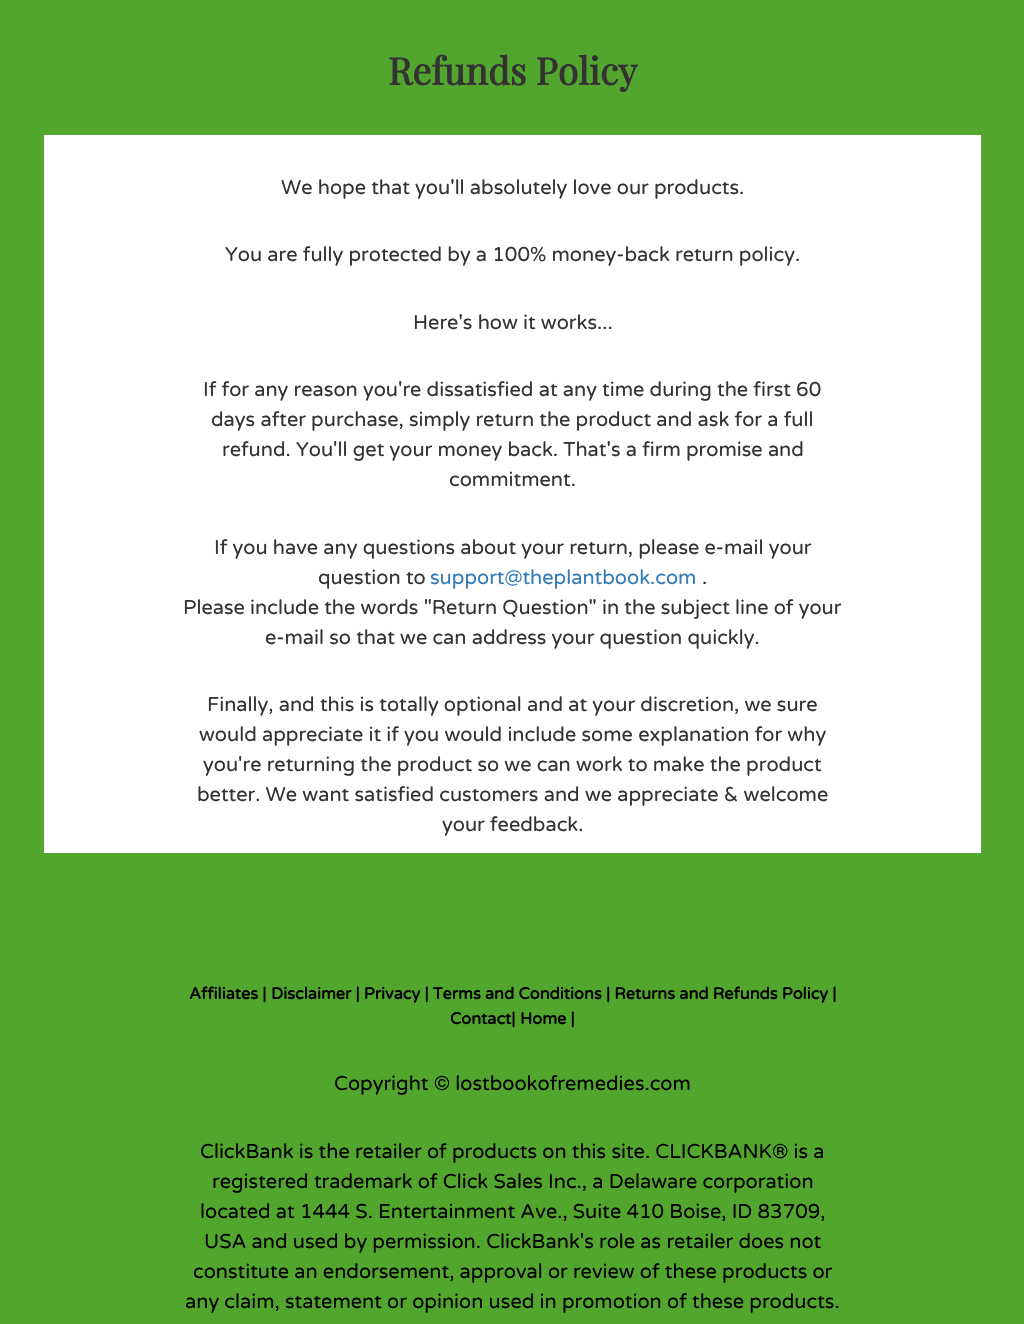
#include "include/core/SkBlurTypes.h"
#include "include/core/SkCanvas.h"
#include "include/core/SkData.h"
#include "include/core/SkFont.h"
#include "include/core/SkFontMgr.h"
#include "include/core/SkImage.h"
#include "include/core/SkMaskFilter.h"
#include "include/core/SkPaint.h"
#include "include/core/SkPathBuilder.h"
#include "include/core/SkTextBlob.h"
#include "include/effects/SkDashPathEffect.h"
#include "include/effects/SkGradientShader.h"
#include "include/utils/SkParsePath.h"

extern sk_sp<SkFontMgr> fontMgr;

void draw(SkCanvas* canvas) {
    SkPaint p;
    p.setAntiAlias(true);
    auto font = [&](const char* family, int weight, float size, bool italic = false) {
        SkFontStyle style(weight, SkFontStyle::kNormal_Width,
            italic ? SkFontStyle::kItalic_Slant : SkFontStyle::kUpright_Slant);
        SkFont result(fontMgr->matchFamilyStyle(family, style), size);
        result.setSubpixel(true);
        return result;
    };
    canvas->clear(0xFF52A62D);
    auto font1 = font("Playfair Display", 700, 37.5f);
    p.setColor(0xFF333333);
    canvas->drawString("Refunds Policy", 388, 85, font1, p);
    p.setColor(0xFFFFFFFF);
    canvas->drawRect(SkRect::MakeLTRB(44, 135, 981, 853), p);
    auto font2 = font("Varela Round", 400, 20);
    p.setColor(0xFF333333);
    {
        const struct { const char* s; float x, y; } items[] = {
            {"We hope that you'll absolutely love our products.", 281, 194},
            {"You are fully protected by a 100% money-back return policy.", 225, 261},
            {"Here's how it works...", 413, 329},
            {"If for any reason you're dissatisfied at any time during the first 60", 203, 396},
            {"days after purchase, simply return the product and ask for a full", 211, 426},
            {"refund. You'll get your money back. That's a firm promise and", 222, 456},
            {"commitment.", 449, 486},
            {"If you have any questions about your return, please e-mail your", 214, 554},
            {"question to", 318, 584},
        };
        for (auto [s, x, y] : items) {
            canvas->drawString(s, x, y, font2, p);
        }
    }
    p.setColor(0xFF337AB7);
    canvas->drawString("support@theplantbook.com", 430, 584, font2, p);
    p.setColor(0xFF333333);
    {
        const struct { const char* s; float x, y; } items[] = {
            {".", 702, 584},
            {"Please include the words \"Return Question\" in the subject line of your", 183, 614},
            {"e-mail so that we can address your question quickly.", 265, 644},
            {"Finally, and this is totally optional and at your discretion, we sure", 207, 711},
            {"would appreciate it if you would include some explanation for why", 199, 741},
            {"you're returning the product so we can work to make the product", 203, 771},
            {"better. We want satisfied customers and we appreciate & welcome", 197, 801},
            {"your feedback.", 442, 831},
        };
        for (auto [s, x, y] : items) {
            canvas->drawString(s, x, y, font2, p);
        }
    }
    auto font3 = font("Varela Round", 700, 16.25f);
    p.setColor(0xFF000000);
    {
        const struct { const char* s; float x, y; } items[] = {
            {"Affiliates |", 189, 999},
            {"Disclaimer | Privacy | Terms and Conditions | Returns and Refunds Policy |", 271, 999},
            {"Contact|", 450, 1024},
            {"Home |", 520, 1024},
        };
        for (auto [s, x, y] : items) {
            canvas->drawString(s, x, y, font3, p);
        }
    }
    {
        const struct { const char* s; float x, y; } items[] = {
            {"Copyright © lostbookofremedies.com", 334, 1090},
            {"ClickBank is the retailer of products on this site. CLICKBANK® is a", 200, 1158},
            {"registered trademark of Click Sales Inc., a Delaware corporation", 212, 1188},
            {"located at 1444 S. Entertainment Ave., Suite 410 Boise, ID 83709,", 200, 1218},
            {"USA and used by permission. ClickBank's role as retailer does not", 204, 1248},
            {"constitute an endorsement, approval or review of these products or", 193, 1278},
            {"any claim, statement or opinion used in promotion of these products.", 185, 1308},
        };
        for (auto [s, x, y] : items) {
            canvas->drawString(s, x, y, font2, p);
        }
    }
}
